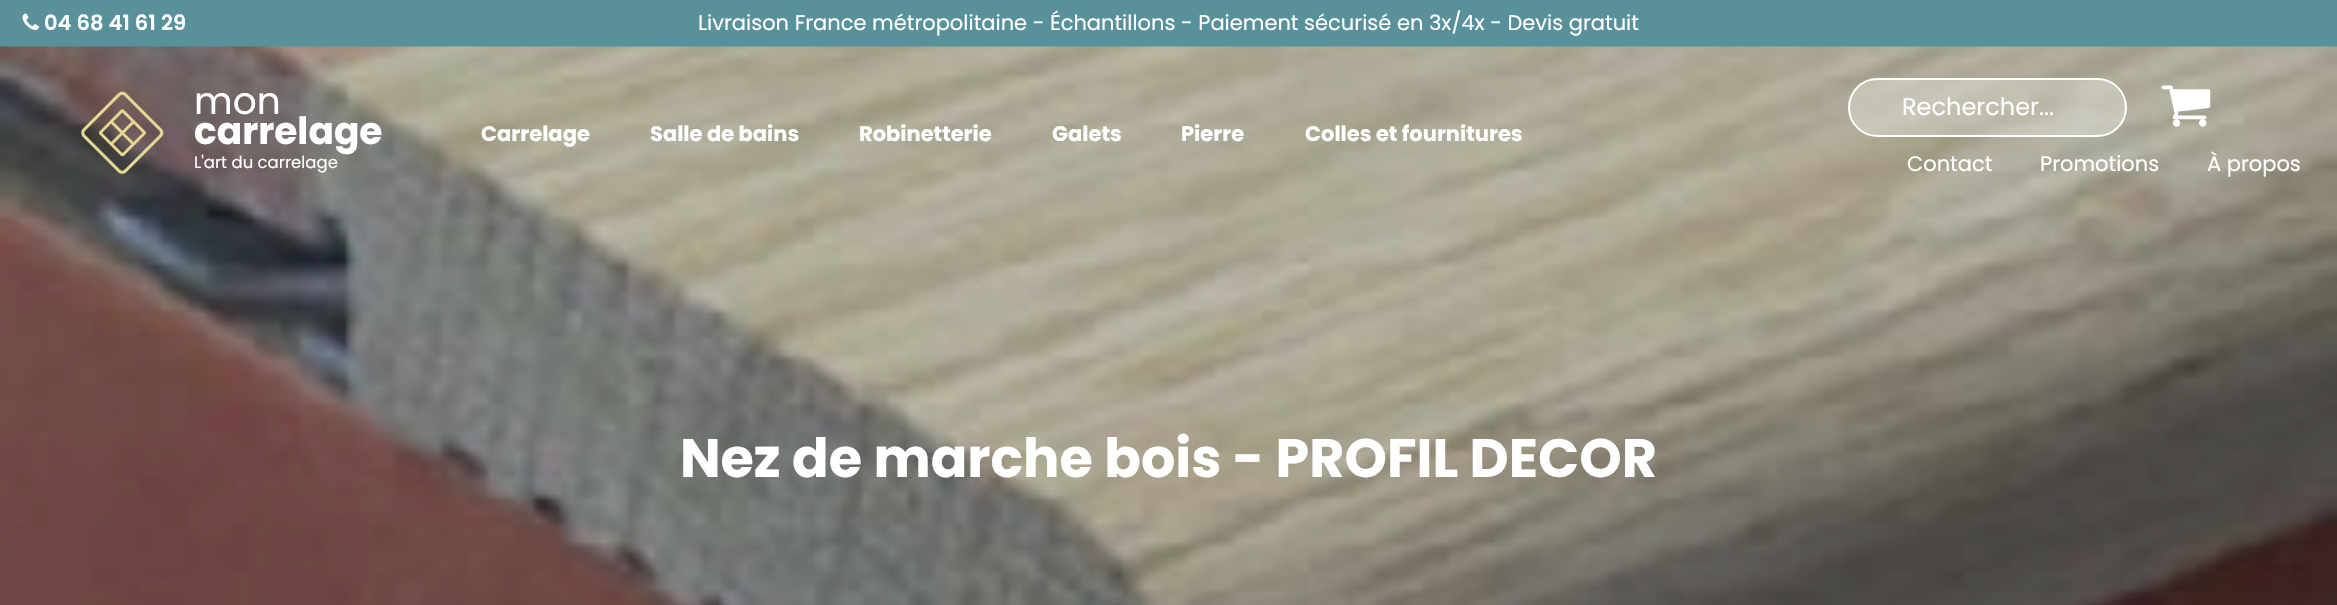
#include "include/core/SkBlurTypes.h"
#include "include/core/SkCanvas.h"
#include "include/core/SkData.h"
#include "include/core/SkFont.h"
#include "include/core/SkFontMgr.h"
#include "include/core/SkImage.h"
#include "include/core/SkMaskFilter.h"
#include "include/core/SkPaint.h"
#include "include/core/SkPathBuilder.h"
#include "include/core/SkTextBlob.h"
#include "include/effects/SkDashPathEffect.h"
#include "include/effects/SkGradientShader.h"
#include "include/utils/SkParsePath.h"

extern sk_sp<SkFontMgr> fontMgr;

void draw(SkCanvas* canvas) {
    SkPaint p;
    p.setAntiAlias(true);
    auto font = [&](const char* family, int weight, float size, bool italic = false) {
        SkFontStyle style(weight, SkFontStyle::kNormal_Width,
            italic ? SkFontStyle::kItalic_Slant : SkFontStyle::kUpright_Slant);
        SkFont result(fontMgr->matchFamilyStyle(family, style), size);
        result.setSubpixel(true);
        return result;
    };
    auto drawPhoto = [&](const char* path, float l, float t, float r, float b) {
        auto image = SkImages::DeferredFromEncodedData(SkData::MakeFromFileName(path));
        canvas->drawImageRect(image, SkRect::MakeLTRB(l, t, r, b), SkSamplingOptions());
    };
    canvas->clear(0xFF59919A);
    drawPhoto("media/1.png", 22, 13, 39, 30);
    auto font1 = font("Poppins", 600, 21);
    p.setColor(0xFFFFFFFF);
    canvas->drawString("04 68 41 61 29", 44, 30, font1, p);
    auto font2 = font("Poppins", 400, 21);
    canvas->drawString("Livraison France métropolitaine - Échantillons - Paiement sécurisé en 3x/4x - Devis gratuit", 698, 30, font2, p);
    drawPhoto("media/2.png", 0, 46, 2337, 605);
    drawPhoto("media/3.png", 81, 91, 164, 174);
    auto font3 = font("Poppins", 400, 37.5f);
    canvas->drawString("mon", 194, 114, font3, p);
    auto font4 = font("Poppins", 700, 37.5f);
    canvas->drawString("carrelage", 194, 144, font4, p);
    auto font5 = font("Poppins", 400, 16.5f);
    canvas->drawString("L'art du carrelage", 194, 168, font5, p);
    auto font6 = font("Poppins", 700, 21);
    {
        const struct { const char* s; float x, y; } items[] = {
            {"Carrelage", 481, 141},
            {"Salle de bains", 650, 141},
            {"Robinetterie", 859, 141},
            {"Galets", 1052, 141},
            {"Pierre", 1181, 141},
            {"Colles et fournitures", 1305, 141},
        };
        for (auto [s, x, y] : items) {
            canvas->drawString(s, x, y, font6, p);
        }
    }
    p.setColor(0x4DFFFFFF);
    canvas->drawRoundRect(SkRect::MakeLTRB(1849, 79, 2126, 136), 28.5f, 28.5f, p);
    p.setStyle(SkPaint::kStroke_Style);
    p.setStrokeWidth(2);
    p.setColor(0xFFFFFFFF);
    canvas->drawRoundRect(SkRect::MakeLTRB(1849, 79, 2126, 136), 28.5f, 28.5f, p);
    auto font7 = font("Poppins", 400, 24);
    p.setStyle(SkPaint::kFill_Style);
    canvas->drawString("Rechercher...", 1902, 115, font7, p);
    drawPhoto("media/4.png", 2161, 85, 2211, 127);
    {
        const struct { const char* s; float x, y; } items[] = {
            {"Contact", 1907, 171},
            {"Promotions", 2040, 171},
            {"À propos", 2207, 171},
        };
        for (auto [s, x, y] : items) {
            canvas->drawString(s, x, y, font2, p);
        }
    }
    auto font8 = font("Poppins", 700, 54);
    canvas->drawString("Nez de marche bois - PROFIL DECOR", 680, 477, font8, p);
}
